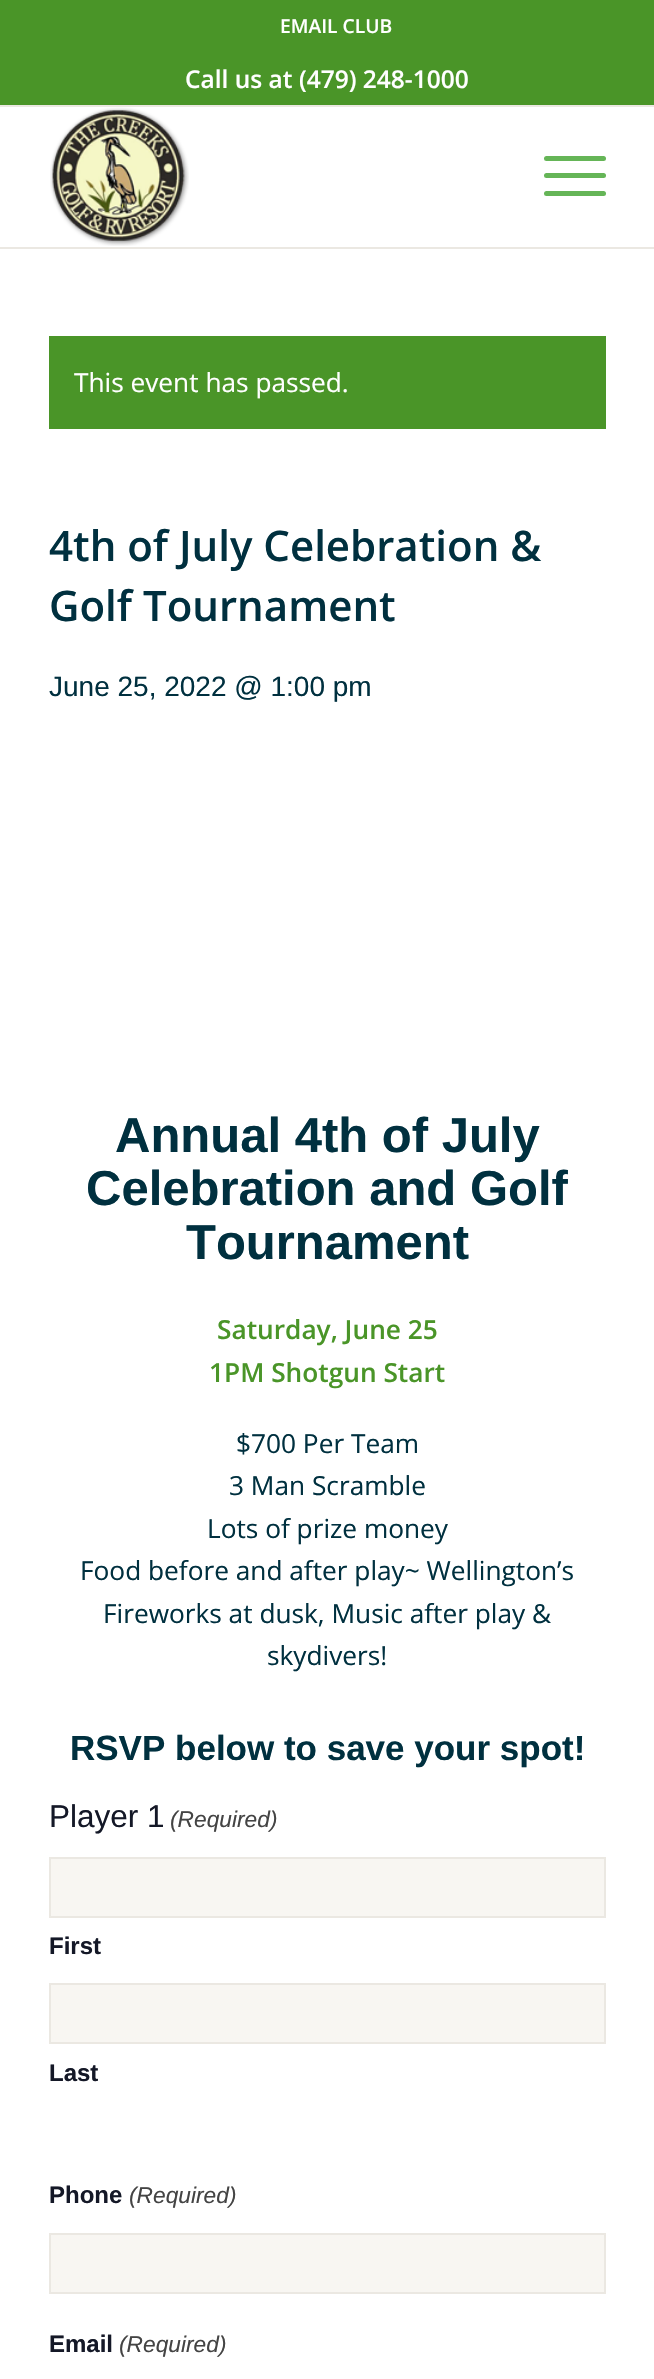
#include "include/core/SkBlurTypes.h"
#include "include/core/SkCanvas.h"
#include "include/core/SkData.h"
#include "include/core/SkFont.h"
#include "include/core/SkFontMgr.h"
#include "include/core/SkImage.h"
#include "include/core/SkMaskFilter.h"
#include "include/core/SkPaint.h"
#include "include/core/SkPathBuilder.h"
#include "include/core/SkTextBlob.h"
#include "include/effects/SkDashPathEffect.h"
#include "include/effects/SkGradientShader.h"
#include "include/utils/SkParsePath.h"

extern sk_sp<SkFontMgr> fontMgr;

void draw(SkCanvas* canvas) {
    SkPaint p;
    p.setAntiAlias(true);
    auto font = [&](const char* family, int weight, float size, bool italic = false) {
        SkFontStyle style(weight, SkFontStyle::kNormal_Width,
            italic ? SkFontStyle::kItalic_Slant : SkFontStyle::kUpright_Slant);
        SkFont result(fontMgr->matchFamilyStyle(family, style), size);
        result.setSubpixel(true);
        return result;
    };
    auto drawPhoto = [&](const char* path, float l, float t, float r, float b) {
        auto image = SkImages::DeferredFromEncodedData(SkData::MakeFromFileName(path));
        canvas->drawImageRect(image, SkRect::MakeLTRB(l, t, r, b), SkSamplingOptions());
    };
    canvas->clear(0xFFFFFFFF);
    p.setColor(0xFF4A9528);
    canvas->drawRect(SkRect::MakeLTRB(0, 0, 654, 105), p);
    p.setColor(0xFFEBE8E2);
    canvas->drawRect(SkRect::MakeLTRB(0, 105, 654, 107), p);
    auto font1 = font("Open Sans", 600, 19.25f);
    p.setColor(0xFFFFFFFF);
    canvas->drawString("EMAIL CLUB", 280, 33, font1, p);
    auto font2 = font("Open Sans", 600, 24.5f);
    canvas->drawString("Call us at (479) 248-1000", 185, 88, font2, p);
    p.setColor(0xFFEBE8E2);
    canvas->drawRect(SkRect::MakeLTRB(0, 247, 654, 249), p);
    drawPhoto("media/1.png", 50, 107, 189, 246);
    p.setColor(0xFF65B557);
    canvas->drawRoundRect(SkRect::MakeLTRB(544, 173, 606, 178), 2.5f, 2.5f, p);
    canvas->drawRoundRect(SkRect::MakeLTRB(544, 156, 606, 161), 2.5f, 2.5f, p);
    canvas->drawRoundRect(SkRect::MakeLTRB(544, 191, 606, 196), 2.5f, 2.5f, p);
    p.setColor(0xFF4A9528);
    canvas->drawRect(SkRect::MakeLTRB(49, 336, 606, 429), p);
    auto font3 = font("Open Sans", 400, 26.25f);
    p.setColor(0xFFFFFFFF);
    canvas->drawString("This event has passed.", 74, 392, font3, p);
    auto font4 = font("Open Sans", 600, 42);
    p.setColor(0xFF00303F);
    canvas->drawString("4th of July Celebration &", 49, 561, font4, p);
    canvas->drawString("Golf Tournament", 49, 621, font4, p);
    auto font5 = font("Liberation Sans", 400, 28);
    canvas->drawString("June 25, 2022 @ 1:00 pm", 49, 696, font5, p);
    auto font6 = font("Liberation Sans", 700, 49);
    {
        const struct { const char* s; float x, y; } items[] = {
            {"Annual 4th of July", 115, 1152},
            {"Celebration and Golf", 86, 1205},
            {"Tournament", 186, 1259},
        };
        for (auto [s, x, y] : items) {
            canvas->drawString(s, x, y, font6, p);
        }
    }
    auto font7 = font("Open Sans", 600, 26.25f);
    p.setColor(0xFF4A9528);
    canvas->drawString("Saturday, June 25", 217, 1339, font7, p);
    canvas->drawString("1PM Shotgun Start", 209, 1382, font7, p);
    p.setColor(0xFF00303F);
    {
        const struct { const char* s; float x, y; } items[] = {
            {"$700 Per Team", 236, 1453},
            {"3 Man Scramble", 229, 1495},
            {"Lots of prize money", 207, 1538},
            {"Food before and after play~ Wellington’s", 80, 1580},
            {"Fireworks at dusk, Music after play &", 103, 1623},
            {"skydivers!", 267, 1665},
        };
        for (auto [s, x, y] : items) {
            canvas->drawString(s, x, y, font3, p);
        }
    }
    auto font8 = font("Liberation Sans", 700, 35);
    canvas->drawString("RSVP below to save your spot!", 70, 1760, font8, p);
    auto font9 = font("Liberation Sans", 400, 31.5f);
    p.setColor(0xFF141827);
    canvas->drawString("Player 1", 49, 1827, font9, p);
    auto font10 = font("Liberation Sans", 400, 22.75f, true);
    p.setColor(0xFF444444);
    canvas->drawString("(Required)", 170, 1827, font10, p);
    p.setColor(0xFFF8F6F2);
    canvas->drawRect(SkRect::MakeLTRB(50, 1858, 605, 1917), p);
    p.setStyle(SkPaint::kStroke_Style);
    p.setStrokeWidth(2);
    p.setColor(0xFFEBE8E2);
    canvas->drawRect(SkRect::MakeLTRB(50, 1858, 605, 1917), p);
    auto font11 = font("Liberation Sans", 700, 24);
    p.setStyle(SkPaint::kFill_Style);
    p.setColor(0xFF141827);
    canvas->drawString("First", 49, 1954, font11, p);
    p.setColor(0xFFF8F6F2);
    canvas->drawRect(SkRect::MakeLTRB(50, 1984, 605, 2043), p);
    p.setStyle(SkPaint::kStroke_Style);
    p.setColor(0xFFEBE8E2);
    canvas->drawRect(SkRect::MakeLTRB(50, 1984, 605, 2043), p);
    p.setStyle(SkPaint::kFill_Style);
    p.setColor(0xFF141827);
    canvas->drawString("Last", 49, 2081, font11, p);
    canvas->drawString("Phone", 49, 2203, font11, p);
    p.setColor(0xFF444444);
    canvas->drawString("(Required)", 129, 2203, font10, p);
    p.setColor(0xFFF8F6F2);
    canvas->drawRect(SkRect::MakeLTRB(50, 2234, 605, 2293), p);
    p.setStyle(SkPaint::kStroke_Style);
    p.setColor(0xFFEBE8E2);
    canvas->drawRect(SkRect::MakeLTRB(50, 2234, 605, 2293), p);
    p.setStyle(SkPaint::kFill_Style);
    p.setColor(0xFF141827);
    canvas->drawString("Email", 49, 2352, font11, p);
    p.setColor(0xFF444444);
    canvas->drawString("(Required)", 119, 2352, font10, p);
}
